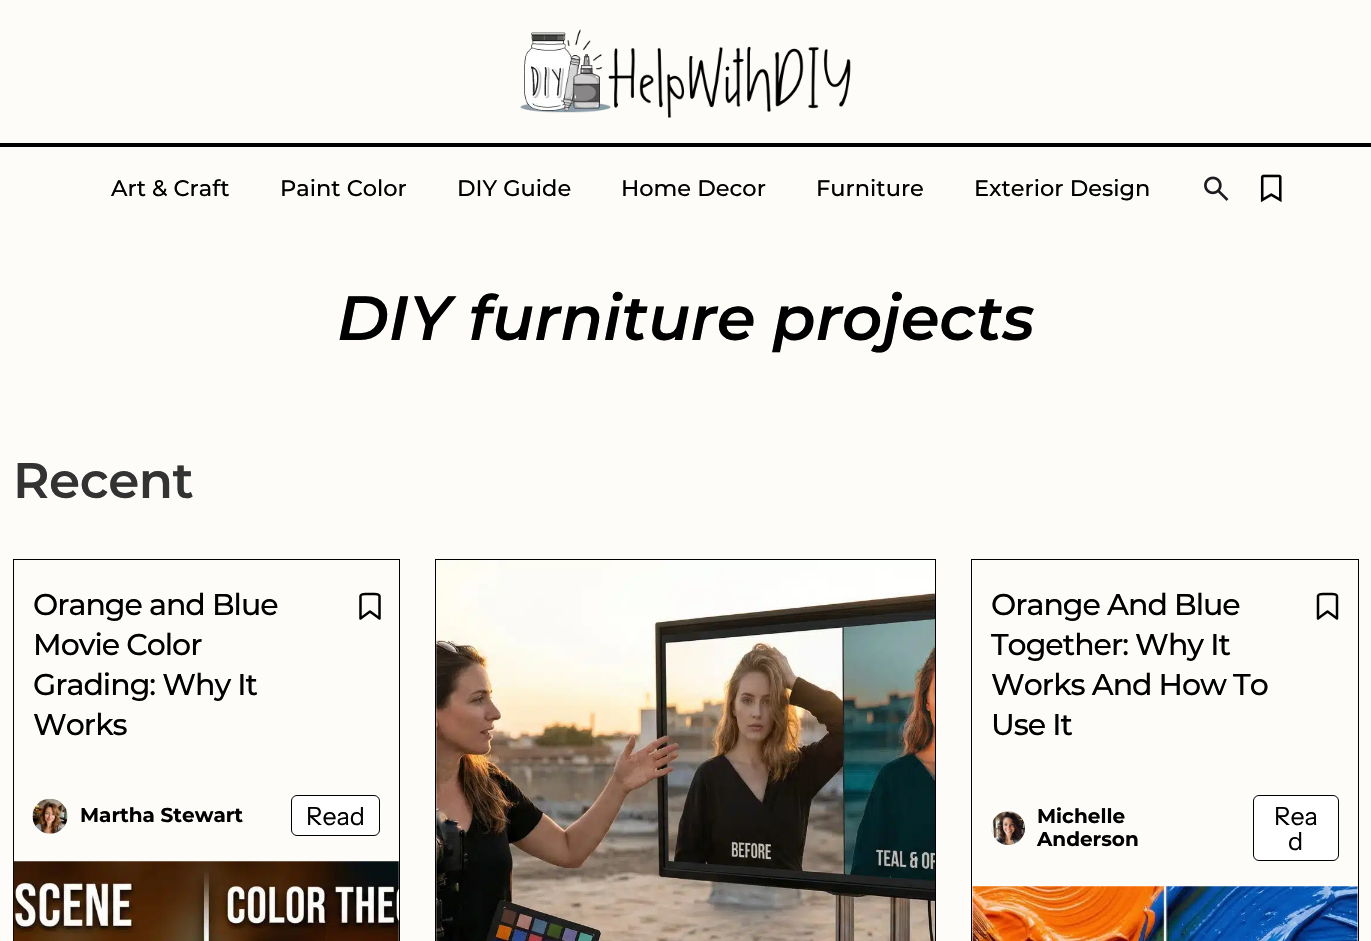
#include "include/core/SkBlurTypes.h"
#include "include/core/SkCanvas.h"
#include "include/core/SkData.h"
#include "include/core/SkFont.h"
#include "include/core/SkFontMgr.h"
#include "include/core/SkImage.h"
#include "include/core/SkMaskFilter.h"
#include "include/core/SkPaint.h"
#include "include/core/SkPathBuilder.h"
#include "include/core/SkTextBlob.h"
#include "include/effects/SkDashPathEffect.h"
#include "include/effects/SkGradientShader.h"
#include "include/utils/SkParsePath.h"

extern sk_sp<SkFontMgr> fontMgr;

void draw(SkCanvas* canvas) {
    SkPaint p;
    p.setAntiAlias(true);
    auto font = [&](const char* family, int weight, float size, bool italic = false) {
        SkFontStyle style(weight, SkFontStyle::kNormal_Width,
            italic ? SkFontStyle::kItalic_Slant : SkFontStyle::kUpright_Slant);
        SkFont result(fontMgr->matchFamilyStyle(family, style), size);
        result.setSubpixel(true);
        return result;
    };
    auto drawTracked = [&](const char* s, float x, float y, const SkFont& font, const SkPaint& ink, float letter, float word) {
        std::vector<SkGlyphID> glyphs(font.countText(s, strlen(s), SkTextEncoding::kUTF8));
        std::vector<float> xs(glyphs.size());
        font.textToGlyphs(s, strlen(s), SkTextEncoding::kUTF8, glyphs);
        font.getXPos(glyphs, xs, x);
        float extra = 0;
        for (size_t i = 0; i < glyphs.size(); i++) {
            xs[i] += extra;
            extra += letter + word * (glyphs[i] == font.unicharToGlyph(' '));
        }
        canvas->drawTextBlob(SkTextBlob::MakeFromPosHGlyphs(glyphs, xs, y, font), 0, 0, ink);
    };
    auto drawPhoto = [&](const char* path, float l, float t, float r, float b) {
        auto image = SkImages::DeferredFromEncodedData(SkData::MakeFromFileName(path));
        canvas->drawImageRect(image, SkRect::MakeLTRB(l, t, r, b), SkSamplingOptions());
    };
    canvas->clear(0xFFFDFCF8);
    p.setColor(0xFF000000);
    canvas->drawRect(SkRect::MakeLTRB(0, 143, 1371, 147), p);
    drawPhoto("media/1.png", 520, 29, 851, 118);
    auto font1 = font("Montserrat", 500, 22.5f);
    {
        const struct { const char* s; float x, y; } items[] = {
            {"Art & Craft", 111, 196},
            {"Paint Color", 280, 196},
            {"DIY Guide", 457, 196},
            {"Home Decor", 621, 196},
            {"Furniture", 816, 196},
            {"Exterior Design", 974, 196},
        };
        for (auto [s, x, y] : items) {
            canvas->drawString(s, x, y, font1, p);
        }
    }
    drawPhoto("media/2.png", 1204, 176, 1229, 201);
    drawPhoto("media/3.png", 1260, 174, 1282, 203);
    auto font2 = font("Montserrat", 600, 62.5f, true);
    canvas->drawString("DIY furniture projects", 337, 340, font2, p);
    auto font3 = font("Montserrat", 600, 50);
    p.setColor(0xFF333333);
    drawTracked("Recent", 13, 498, font3, p, -0.5f, 0);
    p.setStyle(SkPaint::kStroke_Style);
    p.setStrokeWidth(1);
    p.setColor(0xFF000000);
    canvas->drawRect(SkRect::MakeLTRB(13.5f, 559.5f, 399.5f, 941.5f), p);
    auto font4 = font("Montserrat", 500, 30);
    p.setStyle(SkPaint::kFill_Style);
    {
        const struct { const char* s; float x, y; } items[] = {
            {"Orange and Blue", 33, 615},
            {"Movie Color", 33, 655},
            {"Grading: Why It", 33, 695},
            {"Works", 33, 735},
        };
        for (auto [s, x, y] : items) {
            drawTracked(s, x, y, font4, p, -1, 0);
        }
    }
    p.setStyle(SkPaint::kStroke_Style);
    p.setStrokeWidth(2.5f);
    p.setStrokeCap(SkPaint::kRound_Cap);
    p.setStrokeJoin(SkPaint::kRound_Join);
    canvas->drawPath(SkPathBuilder().moveTo(379.5f, 618.5f).lineTo(370, 611.5f).lineTo(360.5f, 618.5f).lineTo(360.5f, 596).cubicTo(361, 594, 363.5f, 594, 365.5f, 594).lineTo(374.5f, 594).cubicTo(376.5f, 594, 379, 594, 379.5f, 596).close().detach(), p);
    drawPhoto("media/4.png", 32, 798, 68, 834);
    auto font5 = font("Montserrat", 700, 20);
    p.setStyle(SkPaint::kFill_Style);
    canvas->drawString("Martha Stewart", 80, 822, font5, p);
    p.setColor(0xFFFFFFFF);
    canvas->drawRoundRect(SkRect::MakeLTRB(291.5f, 795.5f, 379.5f, 835.5f), 5.5f, 5.5f, p);
    p.setStyle(SkPaint::kStroke_Style);
    p.setStrokeWidth(1);
    p.setStrokeCap(SkPaint::kButt_Cap);
    p.setStrokeJoin(SkPaint::kMiter_Join);
    p.setColor(0xFF000000);
    canvas->drawRoundRect(SkRect::MakeLTRB(291.5f, 795.5f, 379.5f, 835.5f), 5.5f, 5.5f, p);
    auto font6 = font("Instrument Sans", 400, 25);
    p.setStyle(SkPaint::kFill_Style);
    canvas->drawString("Read", 306, 825, font6, p);
    drawPhoto("media/5.png", 13, 861, 399, 941);
    p.setStyle(SkPaint::kStroke_Style);
    canvas->drawRect(SkRect::MakeLTRB(435.5f, 559.5f, 935.5f, 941.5f), p);
    drawPhoto("media/6.png", 436, 560, 935, 941);
    canvas->drawRect(SkRect::MakeLTRB(971.5f, 559.5f, 1358.5f, 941.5f), p);
    p.setStyle(SkPaint::kFill_Style);
    {
        const struct { const char* s; float x, y; } items[] = {
            {"Orange And Blue", 991, 615},
            {"Together: Why It", 991, 655},
            {"Works And How To", 991, 695},
            {"Use It", 991, 735},
        };
        for (auto [s, x, y] : items) {
            drawTracked(s, x, y, font4, p, -1, 0);
        }
    }
    p.setStyle(SkPaint::kStroke_Style);
    p.setStrokeWidth(2.5f);
    p.setStrokeCap(SkPaint::kRound_Cap);
    p.setStrokeJoin(SkPaint::kRound_Join);
    canvas->drawPath(SkPathBuilder().moveTo(1337, 618.5f).lineTo(1327.5f, 611.5f).lineTo(1318, 618.5f).lineTo(1318, 596).cubicTo(1318.5f, 594, 1321, 594, 1323, 594).lineTo(1332, 594).cubicTo(1334, 594, 1336.5f, 594, 1337, 596).close().detach(), p);
    drawPhoto("media/7.png", 991, 811, 1025, 845);
    p.setStyle(SkPaint::kFill_Style);
    canvas->drawString("Michelle", 1037, 823, font5, p);
    canvas->drawString("Anderson", 1037, 846, font5, p);
    p.setColor(0xFFFFFFFF);
    canvas->drawRoundRect(SkRect::MakeLTRB(1253.5f, 795.5f, 1338.5f, 860.5f), 5.5f, 5.5f, p);
    p.setStyle(SkPaint::kStroke_Style);
    p.setStrokeWidth(1);
    p.setStrokeCap(SkPaint::kButt_Cap);
    p.setStrokeJoin(SkPaint::kMiter_Join);
    p.setColor(0xFF000000);
    canvas->drawRoundRect(SkRect::MakeLTRB(1253.5f, 795.5f, 1338.5f, 860.5f), 5.5f, 5.5f, p);
    p.setStyle(SkPaint::kFill_Style);
    canvas->drawString("Rea", 1274, 825, font6, p);
    canvas->drawString("d", 1288, 850, font6, p);
    drawPhoto("media/8.png", 972, 886, 1358, 941);
}
